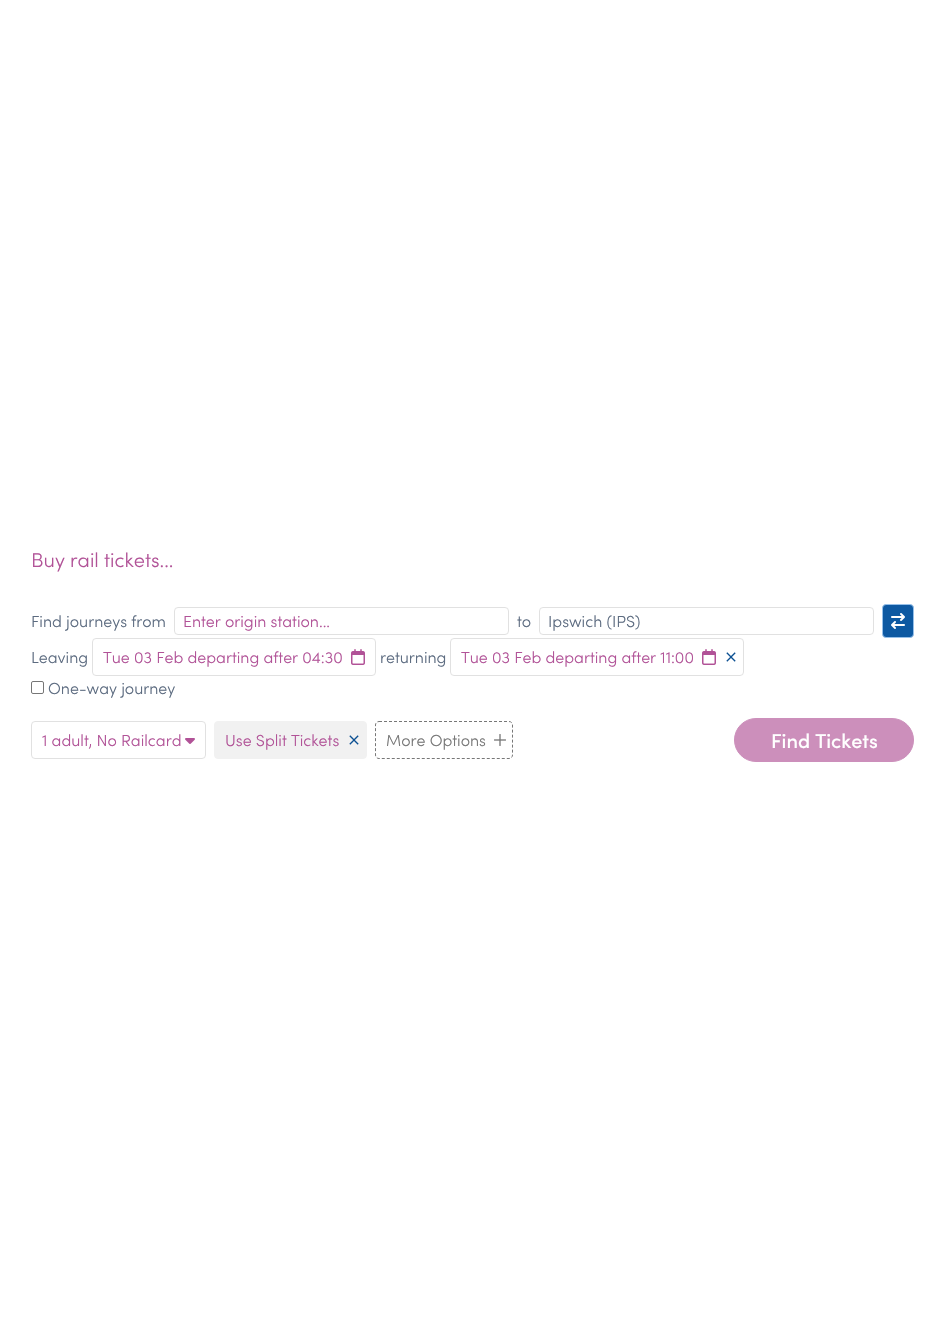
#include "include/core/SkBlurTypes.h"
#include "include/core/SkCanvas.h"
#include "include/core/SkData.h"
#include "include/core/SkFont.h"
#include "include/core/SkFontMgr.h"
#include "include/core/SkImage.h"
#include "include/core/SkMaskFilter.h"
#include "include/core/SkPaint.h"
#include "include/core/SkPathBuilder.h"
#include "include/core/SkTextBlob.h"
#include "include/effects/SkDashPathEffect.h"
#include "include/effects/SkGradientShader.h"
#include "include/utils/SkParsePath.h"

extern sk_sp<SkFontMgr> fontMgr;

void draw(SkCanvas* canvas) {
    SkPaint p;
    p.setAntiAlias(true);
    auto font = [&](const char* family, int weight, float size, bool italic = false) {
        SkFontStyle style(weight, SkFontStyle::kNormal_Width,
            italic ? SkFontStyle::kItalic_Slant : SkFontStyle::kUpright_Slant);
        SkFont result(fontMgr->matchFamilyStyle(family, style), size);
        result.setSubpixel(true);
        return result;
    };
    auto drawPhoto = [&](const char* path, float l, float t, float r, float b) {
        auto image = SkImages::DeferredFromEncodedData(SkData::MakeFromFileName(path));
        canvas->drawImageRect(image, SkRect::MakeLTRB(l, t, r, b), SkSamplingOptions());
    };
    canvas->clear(0xFFFFFFFF);
    auto font1 = font("Sofia", 300, 20);
    p.setColor(0xFFB15297);
    canvas->drawString("Buy rail tickets...", 31, 567, font1, p);
    auto font2 = font("Sofia", 300, 16);
    p.setColor(0xFF5C6B80);
    canvas->drawString("Find journeys from", 31, 627, font2, p);
    p.setStyle(SkPaint::kStroke_Style);
    p.setStrokeWidth(1);
    p.setColor(0xFFE1E1E1);
    canvas->drawRoundRect(SkRect::MakeLTRB(174.5f, 607.5f, 508.5f, 634.5f), 3.5f, 3.5f, p);
    p.setStyle(SkPaint::kFill_Style);
    p.setColor(0xFFB15297);
    canvas->drawString("Enter origin station...", 183, 627, font2, p);
    p.setColor(0xFF5C6B80);
    canvas->drawString("to", 517, 627, font2, p);
    p.setStyle(SkPaint::kStroke_Style);
    p.setColor(0xFFE1E1E1);
    canvas->drawRoundRect(SkRect::MakeLTRB(539.5f, 607.5f, 873.5f, 634.5f), 3.5f, 3.5f, p);
    p.setStyle(SkPaint::kFill_Style);
    p.setColor(0xFF5C6B80);
    canvas->drawString("Ipswich (IPS)", 548, 627, font2, p);
    p.setColor(0xFF0D59A2);
    canvas->drawRoundRect(SkRect::MakeLTRB(882.5f, 604.5f, 913.5f, 637.5f), 3.5f, 3.5f, p);
    p.setStyle(SkPaint::kStroke_Style);
    p.setColor(0xFF96C0E9);
    canvas->drawRoundRect(SkRect::MakeLTRB(882.5f, 604.5f, 913.5f, 637.5f), 3.5f, 3.5f, p);
    drawPhoto("media/1.png", 891, 613, 905, 629);
    p.setStyle(SkPaint::kFill_Style);
    p.setColor(0xFF5C6B80);
    canvas->drawString("Leaving", 31, 663, font2, p);
    p.setStyle(SkPaint::kStroke_Style);
    p.setColor(0xFFE1E1E1);
    canvas->drawRoundRect(SkRect::MakeLTRB(92.5f, 638.5f, 375.5f, 675.5f), 3.5f, 3.5f, p);
    p.setStyle(SkPaint::kFill_Style);
    p.setColor(0xFFB15297);
    canvas->drawString("Tue 03 Feb departing after 04:30", 103, 663, font2, p);
    drawPhoto("media/2.png", 351, 649, 365, 665);
    p.setColor(0xFF5C6B80);
    canvas->drawString("returning", 380, 663, font2, p);
    p.setStyle(SkPaint::kStroke_Style);
    p.setColor(0xFFE1E1E1);
    canvas->drawRoundRect(SkRect::MakeLTRB(450.5f, 638.5f, 743.5f, 675.5f), 3.5f, 3.5f, p);
    p.setStyle(SkPaint::kFill_Style);
    p.setColor(0xFFB15297);
    canvas->drawString("Tue 03 Feb departing after 11:00", 461, 663, font2, p);
    drawPhoto("media/2.png", 702, 649, 716, 665);
    drawPhoto("media/3.png", 726, 652, 736, 662);
    p.setStyle(SkPaint::kStroke_Style);
    p.setColor(0xFF767676);
    canvas->drawRoundRect(SkRect::MakeLTRB(31.5f, 681.5f, 43.5f, 693.5f), 1.5f, 1.5f, p);
    p.setStyle(SkPaint::kFill_Style);
    p.setColor(0xFF5C6B80);
    canvas->drawString("One-way journey", 48, 694, font2, p);
    p.setStyle(SkPaint::kStroke_Style);
    p.setColor(0xFFE1E1E1);
    canvas->drawRoundRect(SkRect::MakeLTRB(31.5f, 721.5f, 205.5f, 758.5f), 3.5f, 3.5f, p);
    p.setStyle(SkPaint::kFill_Style);
    p.setColor(0xFFB15297);
    canvas->drawString("1 adult, No Railcard", 42, 746, font2, p);
    drawPhoto("media/4.png", 185, 738, 195, 744);
    p.setColor(0xFFF1F1F1);
    canvas->drawRoundRect(SkRect::MakeLTRB(214.5f, 721.5f, 366.5f, 758.5f), 3.5f, 3.5f, p);
    p.setStyle(SkPaint::kStroke_Style);
    canvas->drawRoundRect(SkRect::MakeLTRB(214.5f, 721.5f, 366.5f, 758.5f), 3.5f, 3.5f, p);
    p.setStyle(SkPaint::kFill_Style);
    p.setColor(0xFFB15297);
    canvas->drawString("Use Split Tickets", 225, 746, font2, p);
    drawPhoto("media/5.png", 349, 735, 359, 745);
    p.setStyle(SkPaint::kStroke_Style);
    p.setColor(0xFF777777);
    p.setPathEffect(SkDashPathEffect::Make({{3, 2}}, 0));
    canvas->drawPath(SkPathBuilder().moveTo(379, 721.5f).lineTo(509, 721.5f).cubicTo(511, 721.5f, 512.5f, 723, 512.5f, 725).lineTo(512.5f, 755).cubicTo(512.5f, 757, 511, 758.5f, 509, 758.5f).lineTo(379, 758.5f).cubicTo(377, 758.5f, 375.5f, 757, 375.5f, 755).lineTo(375.5f, 725).cubicTo(375.5f, 723, 377, 721.5f, 379, 721.5f).close().detach(), p);
    p.setPathEffect(nullptr);
    p.setStyle(SkPaint::kFill_Style);
    canvas->drawString("More Options", 386, 746, font2, p);
    drawPhoto("media/6.png", 494, 734, 506, 746);
    p.setColor(0xFFCC8FBB);
    canvas->drawRoundRect(SkRect::MakeLTRB(734.5f, 718.5f, 913.5f, 761.5f), 21.5f, 21.5f, p);
    p.setStyle(SkPaint::kStroke_Style);
    canvas->drawRoundRect(SkRect::MakeLTRB(734.5f, 718.5f, 913.5f, 761.5f), 21.5f, 21.5f, p);
    auto font3 = font("Sofia", 500, 20);
    p.setStyle(SkPaint::kFill_Style);
    p.setColor(0xFFFFFFFF);
    canvas->drawString("Find Tickets", 771, 748, font3, p);
}
